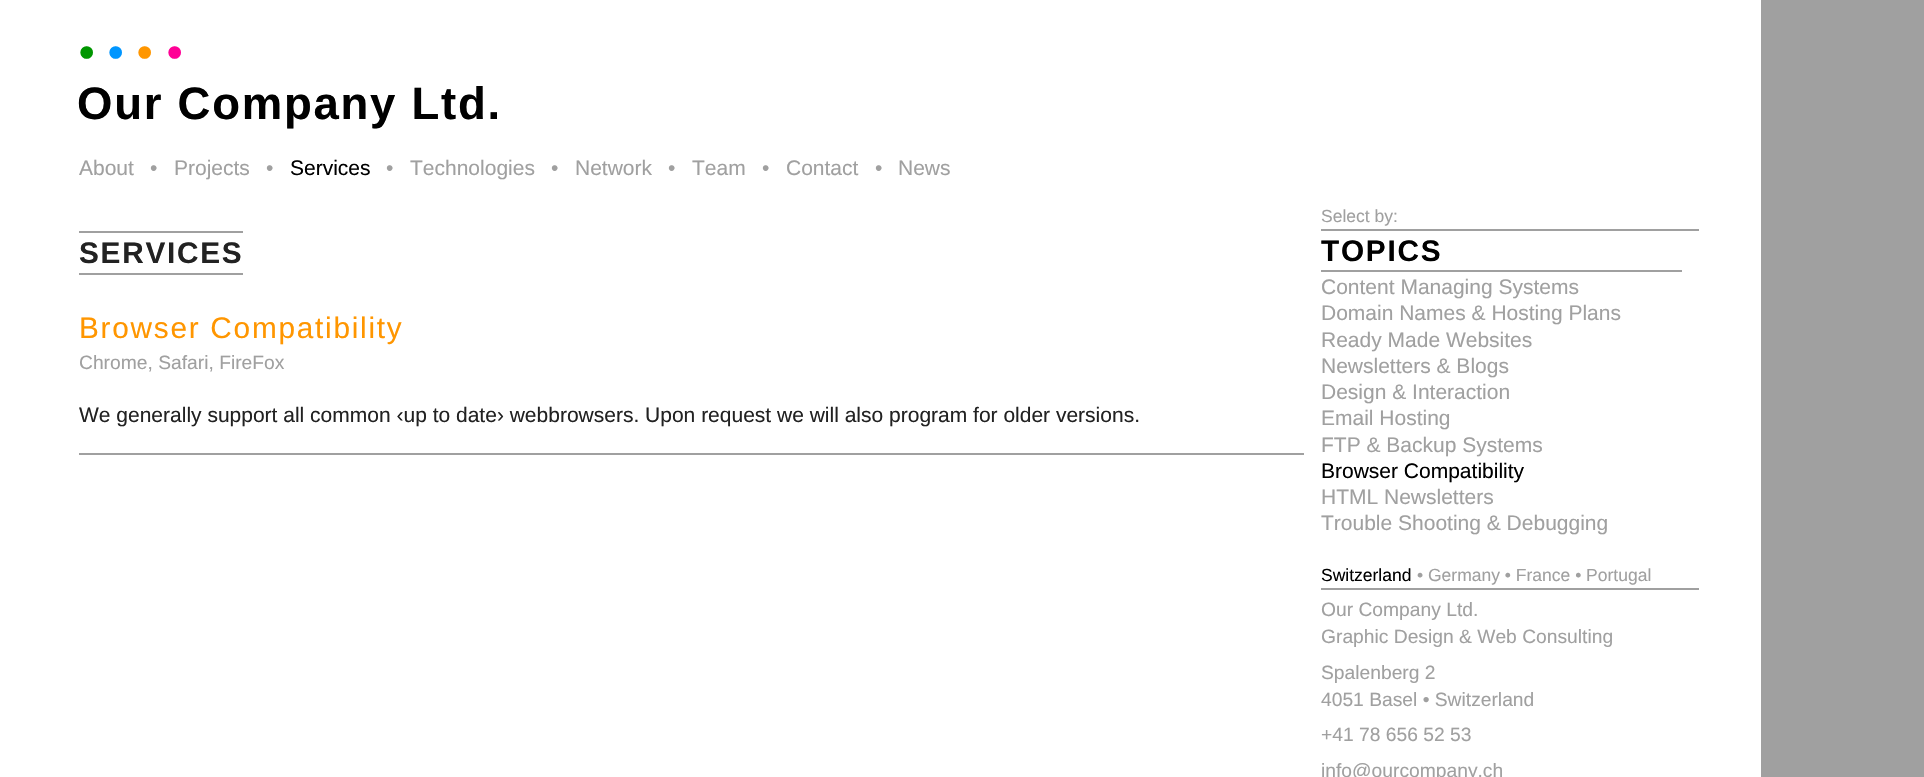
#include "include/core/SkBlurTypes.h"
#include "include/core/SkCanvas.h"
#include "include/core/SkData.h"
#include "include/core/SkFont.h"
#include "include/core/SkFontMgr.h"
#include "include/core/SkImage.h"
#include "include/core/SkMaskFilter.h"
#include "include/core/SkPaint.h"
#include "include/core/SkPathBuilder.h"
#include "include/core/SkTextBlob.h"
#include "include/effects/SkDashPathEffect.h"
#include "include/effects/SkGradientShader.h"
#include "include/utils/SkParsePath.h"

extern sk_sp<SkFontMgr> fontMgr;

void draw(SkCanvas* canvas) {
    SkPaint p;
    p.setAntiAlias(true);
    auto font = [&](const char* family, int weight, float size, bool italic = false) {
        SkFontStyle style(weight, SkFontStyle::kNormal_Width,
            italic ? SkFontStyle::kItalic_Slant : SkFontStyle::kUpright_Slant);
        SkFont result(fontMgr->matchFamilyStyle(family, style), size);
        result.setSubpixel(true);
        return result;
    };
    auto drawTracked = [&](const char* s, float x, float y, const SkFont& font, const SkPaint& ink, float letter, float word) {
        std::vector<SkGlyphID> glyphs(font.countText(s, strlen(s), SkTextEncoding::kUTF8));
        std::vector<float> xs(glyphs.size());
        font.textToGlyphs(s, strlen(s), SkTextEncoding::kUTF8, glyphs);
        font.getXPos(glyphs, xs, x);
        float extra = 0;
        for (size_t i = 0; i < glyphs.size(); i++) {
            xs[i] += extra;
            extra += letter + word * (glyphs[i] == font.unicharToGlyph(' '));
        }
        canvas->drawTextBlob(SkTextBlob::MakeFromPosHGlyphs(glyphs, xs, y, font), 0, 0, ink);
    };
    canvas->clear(0xFFA0A0A0);
    p.setColor(0xFFFFFFFF);
    canvas->drawRect(SkRect::MakeLTRB(0, 0, 1761, 777), p);
    auto font1 = font("Liberation Sans", 700, 44);
    p.setColor(0xFF009600);
    canvas->drawString("•", 79, 67, font1, p);
    p.setColor(0xFF0096FF);
    canvas->drawString("•", 108, 67, font1, p);
    p.setColor(0xFFFF9600);
    canvas->drawString("•", 137, 67, font1, p);
    p.setColor(0xFFFF0096);
    canvas->drawString("•", 167, 67, font1, p);
    auto font2 = font("Liberation Sans", 700, 45.5f);
    p.setColor(0xFF000000);
    drawTracked("Our Company Ltd.", 77, 119, font2, p, 1.75f, 0);
    auto font3 = font("Liberation Sans", 400, 21);
    p.setColor(0xFFA0A0A0);
    {
        const struct { const char* s; float x, y; } items[] = {
            {"About", 79, 175},
            {"•", 150, 175},
            {"Projects", 174, 175},
            {"•", 266, 175},
        };
        for (auto [s, x, y] : items) {
            canvas->drawString(s, x, y, font3, p);
        }
    }
    p.setColor(0xFF000000);
    canvas->drawString("Services", 290, 175, font3, p);
    p.setColor(0xFFA0A0A0);
    {
        const struct { const char* s; float x, y; } items[] = {
            {"•", 386, 175},
            {"Technologies", 410, 175},
            {"•", 551, 175},
            {"Network", 575, 175},
            {"•", 668, 175},
            {"Team", 692, 175},
            {"•", 762, 175},
            {"Contact", 786, 175},
            {"•", 875, 175},
            {"News", 898, 175},
        };
        for (auto [s, x, y] : items) {
            canvas->drawString(s, x, y, font3, p);
        }
    }
    canvas->drawRect(SkRect::MakeLTRB(79, 231, 243, 233), p);
    canvas->drawRect(SkRect::MakeLTRB(79, 273, 243, 275), p);
    auto font4 = font("Liberation Sans", 700, 29.75f);
    p.setColor(0xFF222222);
    drawTracked("SERVICES", 79, 263, font4, p, 1.75f, 0);
    p.setColor(0xFFA0A0A0);
    canvas->drawRect(SkRect::MakeLTRB(79, 453, 1304, 455), p);
    auto font5 = font("Liberation Sans", 400, 29.75f);
    p.setColor(0xFFFF9600);
    drawTracked("Browser Compatibility", 79, 338, font5, p, 1.75f, 0);
    auto font6 = font("Liberation Sans", 400, 19.25f);
    p.setColor(0xFFA0A0A0);
    canvas->drawString("Chrome, Safari, FireFox", 79, 369, font6, p);
    p.setColor(0xFF222222);
    canvas->drawString("We generally support all common ‹up to date› webbrowsers. Upon request we will also program for older versions.", 79, 422, font3, p);
    p.setColor(0xFFA0A0A0);
    canvas->drawRect(SkRect::MakeLTRB(1321, 229, 1699, 231), p);
    auto font7 = font("Liberation Sans", 400, 17.5f);
    canvas->drawString("Select by:", 1321, 222, font7, p);
    canvas->drawRect(SkRect::MakeLTRB(1321, 270, 1682, 272), p);
    p.setColor(0xFF000000);
    drawTracked("TOPICS", 1321, 261, font4, p, 1.75f, 0);
    p.setColor(0xFFA0A0A0);
    {
        const struct { const char* s; float x, y; } items[] = {
            {"Content Managing Systems", 1321, 294},
            {"Domain Names & Hosting Plans", 1321, 320},
            {"Ready Made Websites", 1321, 347},
            {"Newsletters & Blogs", 1321, 373},
            {"Design & Interaction", 1321, 399},
            {"Email Hosting", 1321, 425},
            {"FTP & Backup Systems", 1321, 452},
        };
        for (auto [s, x, y] : items) {
            canvas->drawString(s, x, y, font3, p);
        }
    }
    p.setColor(0xFF000000);
    canvas->drawString("Browser Compatibility", 1321, 478, font3, p);
    p.setColor(0xFFA0A0A0);
    canvas->drawString("HTML Newsletters", 1321, 504, font3, p);
    canvas->drawString("Trouble Shooting & Debugging", 1321, 530, font3, p);
    canvas->drawRect(SkRect::MakeLTRB(1321, 588, 1699, 590), p);
    p.setColor(0xFF000000);
    canvas->drawString("Switzerland", 1321, 581, font7, p);
    p.setColor(0xFFA0A0A0);
    canvas->drawString("• Germany • France • Portugal", 1417, 581, font7, p);
    {
        const struct { const char* s; float x, y; } items[] = {
            {"Our Company Ltd.", 1321, 616},
            {"Graphic Design & Web Consulting", 1321, 643},
            {"Spalenberg 2", 1321, 679},
            {"4051 Basel • Switzerland", 1321, 706},
            {"+41 78 656 52 53", 1321, 741},
            {"info@ourcompany.ch", 1321, 777},
        };
        for (auto [s, x, y] : items) {
            canvas->drawString(s, x, y, font6, p);
        }
    }
}
